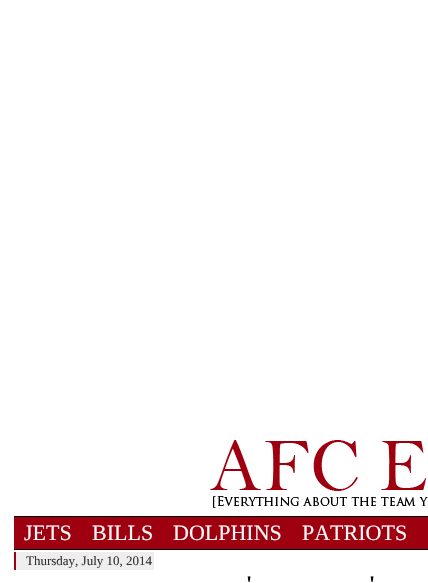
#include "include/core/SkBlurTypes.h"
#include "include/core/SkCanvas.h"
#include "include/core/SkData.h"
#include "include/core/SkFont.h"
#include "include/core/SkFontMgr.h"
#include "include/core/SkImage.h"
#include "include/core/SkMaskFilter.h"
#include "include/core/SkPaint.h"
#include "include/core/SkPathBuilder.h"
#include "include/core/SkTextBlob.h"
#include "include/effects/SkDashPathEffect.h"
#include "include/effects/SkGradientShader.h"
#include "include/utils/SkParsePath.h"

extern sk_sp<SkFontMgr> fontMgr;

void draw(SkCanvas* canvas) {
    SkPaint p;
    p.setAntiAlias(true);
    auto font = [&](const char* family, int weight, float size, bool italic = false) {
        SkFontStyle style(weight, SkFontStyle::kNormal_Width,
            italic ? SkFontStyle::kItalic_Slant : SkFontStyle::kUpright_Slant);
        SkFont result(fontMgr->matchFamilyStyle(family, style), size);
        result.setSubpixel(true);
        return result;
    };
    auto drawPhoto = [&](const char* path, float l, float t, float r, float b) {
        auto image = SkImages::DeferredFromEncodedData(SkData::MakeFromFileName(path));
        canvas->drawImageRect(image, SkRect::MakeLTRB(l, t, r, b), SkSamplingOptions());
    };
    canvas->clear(0xFFFFFFFF);
    drawPhoto("media/1.png", 210, 440, 428, 508);
    {
        const struct { float l, t, r, b; SkColor color; } items[] = {
            {14, 517, 428, 549, 0xFF9F000F},
            {14, 516, 428, 517, 0xFF000000},
            {14, 549, 428, 550, 0xFF000000},
        };
        for (auto [l, t, r, b, color] : items) {
            p.setColor(color);
            canvas->drawRect(SkRect::MakeLTRB(l, t, r, b), p);
        }
    }
    auto font1 = font("Liberation Serif", 400, 22);
    p.setColor(0xFFF8F8F8);
    {
        const struct { const char* s; float x, y; } items[] = {
            {"JETS", 24, 540},
            {"BILLS", 92, 540},
            {"DOLPHINS", 173, 540},
            {"PATRIOTS", 302, 540},
        };
        for (auto [s, x, y] : items) {
            canvas->drawString(s, x, y, font1, p);
        }
    }
    p.setColor(0xFFEEEEEE);
    canvas->drawRect(SkRect::MakeLTRB(16, 552, 154, 570), p);
    auto font2 = font("Liberation Serif", 400, 13);
    p.setColor(0xFF333333);
    canvas->drawString("Thursday, July 10, 2014", 26, 565, font2, p);
    p.setColor(0xFF9F000F);
    canvas->drawRect(SkRect::MakeLTRB(14, 552, 16, 570), p);
    auto font3 = font("Liberation Serif", 700, 22);
    p.setColor(0xFF080808);
    canvas->drawString("'", 246, 591, font3, p);
    canvas->drawString("'", 369, 591, font3, p);
}
